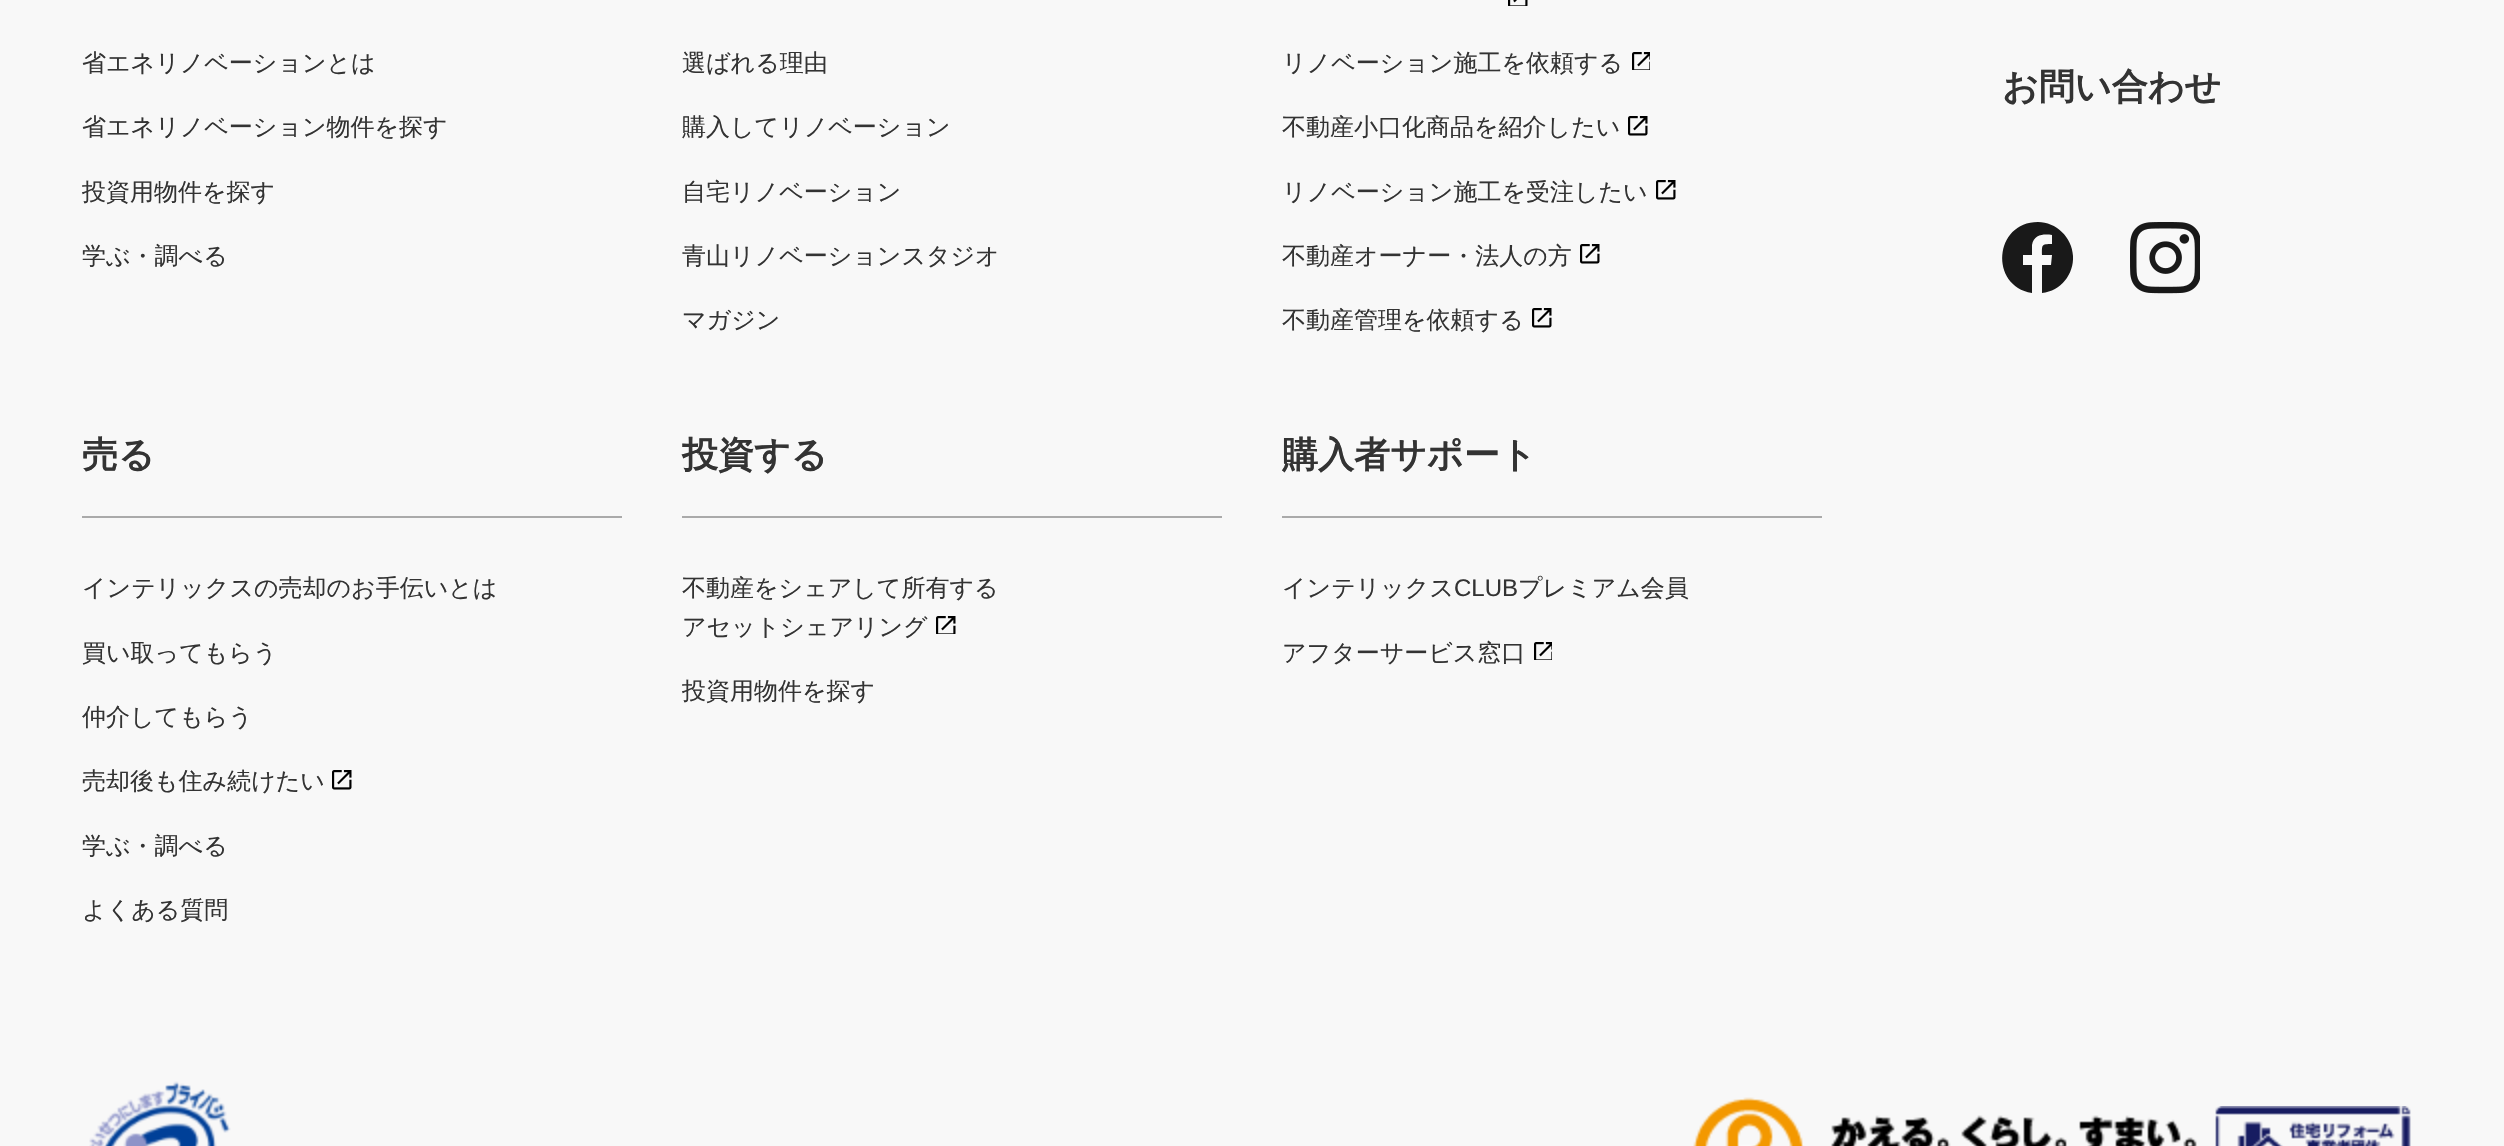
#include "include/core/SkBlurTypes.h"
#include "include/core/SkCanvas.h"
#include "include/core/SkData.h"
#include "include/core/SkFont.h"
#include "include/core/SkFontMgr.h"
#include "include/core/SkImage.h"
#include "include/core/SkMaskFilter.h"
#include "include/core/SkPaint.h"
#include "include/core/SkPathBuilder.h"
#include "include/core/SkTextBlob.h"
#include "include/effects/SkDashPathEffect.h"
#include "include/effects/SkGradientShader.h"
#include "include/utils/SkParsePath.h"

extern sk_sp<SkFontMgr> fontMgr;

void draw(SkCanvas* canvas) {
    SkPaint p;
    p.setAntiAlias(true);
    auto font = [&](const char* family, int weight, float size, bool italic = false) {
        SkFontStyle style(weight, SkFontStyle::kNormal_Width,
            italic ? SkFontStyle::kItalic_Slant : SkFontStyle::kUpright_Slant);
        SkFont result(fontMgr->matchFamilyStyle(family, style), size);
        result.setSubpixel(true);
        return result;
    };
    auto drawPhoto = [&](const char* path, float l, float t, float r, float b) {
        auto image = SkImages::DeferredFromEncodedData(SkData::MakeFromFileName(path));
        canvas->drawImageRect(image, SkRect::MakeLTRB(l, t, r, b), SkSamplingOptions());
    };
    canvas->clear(0xFFF8F8F8);
    auto font1 = font("WenQuanYi Zen Hei", 500, 24);
    p.setColor(0xFF333333);
    {
        const struct { const char* s; float x, y; } items[] = {
            {"省エネリノベーションとは", 82, 71},
            {"省エネリノベーション物件を探す", 82, 135},
            {"投資用物件を探す", 82, 200},
            {"学ぶ・調べる", 82, 264},
            {"選ばれる理由", 682, 71},
            {"購入してリノベーション", 682, 135},
            {"自宅リノベーション", 682, 200},
            {"青山リノベーションスタジオ", 682, 264},
            {"マガジン", 682, 328},
        };
        for (auto [s, x, y] : items) {
            canvas->drawString(s, x, y, font1, p);
        }
    }
    drawPhoto("media/1.png", 1508, 0, 1528, 6);
    canvas->drawString("リノベーション施工を依頼する", 1282, 71, font1, p);
    drawPhoto("media/2.png", 1632, 52, 1650, 70);
    canvas->drawString("不動産小口化商品を紹介したい", 1282, 135, font1, p);
    drawPhoto("media/3.png", 1628, 116, 1648, 136);
    canvas->drawString("リノベーション施工を受注したい", 1282, 200, font1, p);
    drawPhoto("media/3.png", 1656, 180, 1676, 200);
    canvas->drawString("不動産オーナー・法人の方", 1282, 264, font1, p);
    drawPhoto("media/3.png", 1580, 244, 1600, 264);
    canvas->drawString("不動産管理を依頼する", 1282, 328, font1, p);
    drawPhoto("media/3.png", 1532, 308, 1552, 328);
    p.setColor(0xFFAAAAAA);
    canvas->drawRect(SkRect::MakeLTRB(82, 516, 622, 518), p);
    auto font2 = font("WenQuanYi Zen Hei", 700, 36);
    p.setColor(0xFF333333);
    canvas->drawString("売る", 82, 467, font2, p);
    {
        const struct { const char* s; float x, y; } items[] = {
            {"インテリックスの売却のお手伝いとは", 82, 596},
            {"買い取ってもらう", 82, 661},
            {"仲介してもらう", 82, 725},
            {"売却後も住み続けたい", 82, 789},
        };
        for (auto [s, x, y] : items) {
            canvas->drawString(s, x, y, font1, p);
        }
    }
    drawPhoto("media/3.png", 332, 770, 352, 790);
    canvas->drawString("学ぶ・調べる", 82, 854, font1, p);
    canvas->drawString("よくある質問", 82, 918, font1, p);
    p.setColor(0xFFAAAAAA);
    canvas->drawRect(SkRect::MakeLTRB(682, 516, 1222, 518), p);
    p.setColor(0xFF333333);
    canvas->drawString("投資する", 682, 467, font2, p);
    canvas->drawString("不動産をシェアして所有する", 682, 596, font1, p);
    canvas->drawString("アセットシェアリング", 682, 635, font1, p);
    drawPhoto("media/4.png", 936, 616, 956, 634);
    canvas->drawString("投資用物件を探す", 682, 699, font1, p);
    p.setColor(0xFFAAAAAA);
    canvas->drawRect(SkRect::MakeLTRB(1282, 516, 1822, 518), p);
    p.setColor(0xFF333333);
    canvas->drawString("購入者サポート", 1282, 467, font2, p);
    canvas->drawString("インテリックス", 1282, 596, font1, p);
    auto font3 = font("Liberation Sans", 400, 24);
    canvas->drawString("CLUB", 1454, 596, font3, p);
    canvas->drawString("プレミアム会員", 1518, 596, font1, p);
    canvas->drawString("アフターサービス窓口", 1282, 661, font1, p);
    drawPhoto("media/2.png", 1534, 642, 1552, 660);
    canvas->drawString("お問い合わせ", 2002, 99, font2, p);
    p.setColor(0xFF191919);
    canvas->drawPath(SkPathBuilder().moveTo(2038, 222).cubicTo(1994, 222, 1989, 286, 2032, 293).lineTo(2032, 265).lineTo(2023, 265).lineTo(2023, 255).lineTo(2032, 255).lineTo(2032, 245).cubicTo(2034, 234, 2044, 234, 2052, 235).lineTo(2052, 244).cubicTo(2041, 244, 2042, 245, 2042, 255).lineTo(2052, 255).lineTo(2051, 265).lineTo(2042, 265).lineTo(2042, 293).cubicTo(2061, 291, 2074, 274, 2073, 256).cubicTo(2072, 237, 2056, 222, 2038, 222).close().detach(), p);
    drawPhoto("media/5.png", 2130, 222, 2200, 294);
    drawPhoto("media/6.png", 89, 1081, 231, 1146);
    drawPhoto("media/7.png", 1693, 1097, 2197, 1146);
    drawPhoto("media/8.png", 2215, 1106, 2411, 1146);
}
